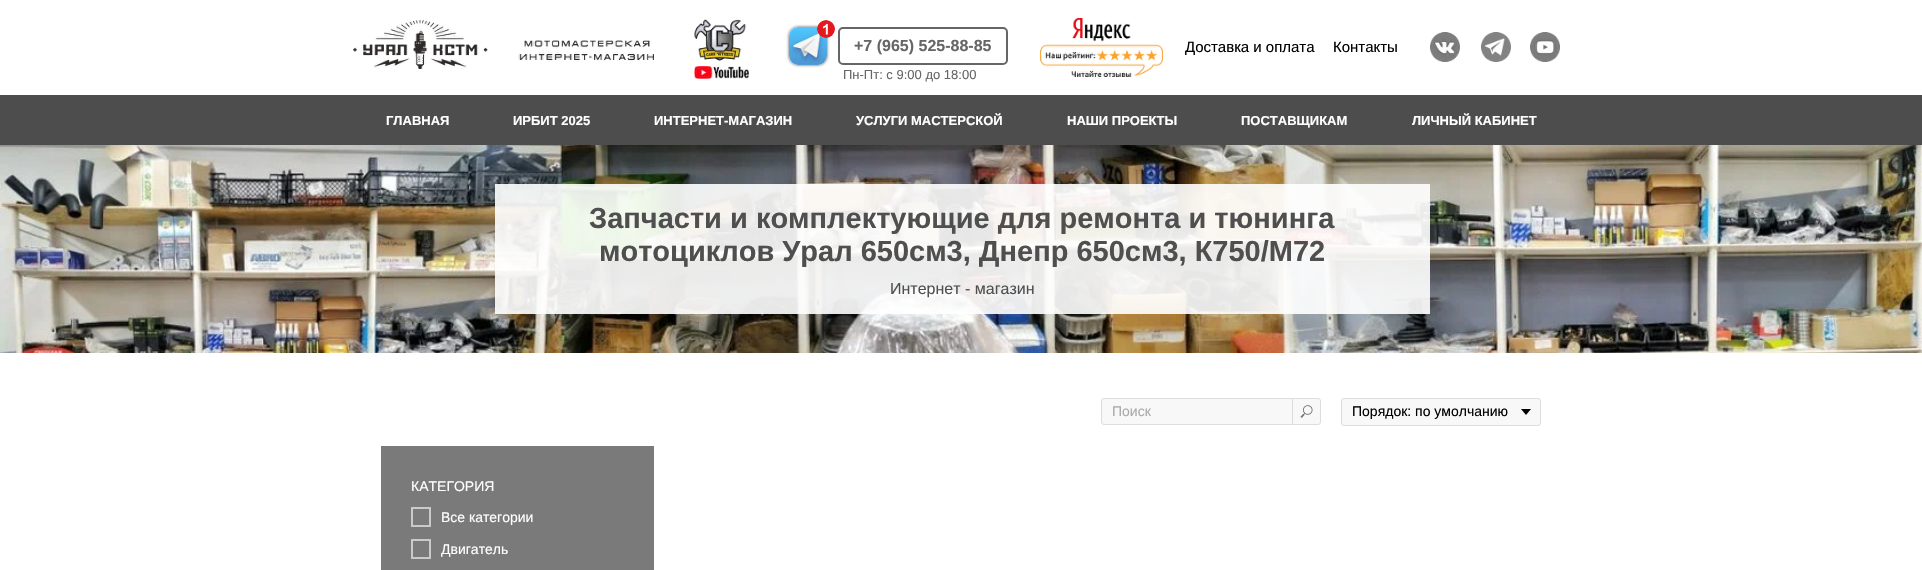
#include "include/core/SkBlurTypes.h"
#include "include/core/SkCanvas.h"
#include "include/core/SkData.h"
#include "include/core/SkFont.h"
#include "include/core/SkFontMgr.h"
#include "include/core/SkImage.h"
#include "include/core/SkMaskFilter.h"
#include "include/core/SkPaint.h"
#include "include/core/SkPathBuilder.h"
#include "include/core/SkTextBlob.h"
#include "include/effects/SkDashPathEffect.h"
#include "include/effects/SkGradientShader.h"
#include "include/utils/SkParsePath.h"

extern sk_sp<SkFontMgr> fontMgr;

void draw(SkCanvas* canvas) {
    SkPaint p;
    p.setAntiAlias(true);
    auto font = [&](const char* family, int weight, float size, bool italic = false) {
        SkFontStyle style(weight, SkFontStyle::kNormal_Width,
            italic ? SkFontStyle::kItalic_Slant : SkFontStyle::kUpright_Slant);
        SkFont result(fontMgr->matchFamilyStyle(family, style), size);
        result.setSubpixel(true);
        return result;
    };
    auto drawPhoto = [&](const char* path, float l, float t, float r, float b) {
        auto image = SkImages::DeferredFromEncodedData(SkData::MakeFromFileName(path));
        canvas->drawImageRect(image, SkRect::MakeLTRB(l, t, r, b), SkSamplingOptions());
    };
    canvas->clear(0xFFFFFFFF);
    drawPhoto("media/1.png", 353, 20, 654, 69);
    drawPhoto("media/2.png", 694, 18, 747, 61);
    canvas->save();
    canvas->clipPath(SkPathBuilder(SkPathFillType::kEvenOdd).moveTo(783, 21).lineTo(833, 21).lineTo(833, 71).lineTo(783, 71).close().moveTo(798, 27).lineTo(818, 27).cubicTo(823, 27, 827, 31, 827, 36).lineTo(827, 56).cubicTo(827, 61, 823, 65, 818, 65).lineTo(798, 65).cubicTo(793, 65, 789, 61, 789, 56).lineTo(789, 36).cubicTo(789, 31, 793, 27, 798, 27).close().detach(), true);
    p.setColor(0xFF4D4D4D);
    p.setMaskFilter(SkMaskFilter::MakeBlur(kNormal_SkBlurStyle, 1.5f));
    canvas->drawRoundRect(SkRect::MakeLTRB(789, 27, 827, 65), 9, 9, p);
    p.setMaskFilter(nullptr);
    canvas->restore();
    drawPhoto("media/5.png", 789, 27, 827, 65);
    drawPhoto("media/3.png", 817, 20, 835, 38);
    drawPhoto("media/4.png", 1040, 18, 1163, 77);
    p.setStyle(SkPaint::kStroke_Style);
    p.setStrokeWidth(2);
    p.setColor(0xFF666666);
    canvas->drawRoundRect(SkRect::MakeLTRB(839, 28, 1007, 64), 4, 4, p);
    auto font1 = font("Liberation Sans", 700, 16);
    p.setStyle(SkPaint::kFill_Style);
    canvas->drawString("+7 (965) 525-88-85", 854, 51, font1, p);
    auto font2 = font("Liberation Sans", 400, 15);
    p.setColor(0xFF000000);
    canvas->drawString("Доставка и оплата", 1185, 52, font2, p);
    canvas->drawString("Контакты", 1333, 52, font2, p);
    drawPhoto("media/6.png", 1430, 32, 1460, 62);
    drawPhoto("media/7.png", 1481, 32, 1511, 62);
    drawPhoto("media/8.png", 1530, 32, 1560, 62);
    drawPhoto("media/9.png", 694, 66, 749, 79);
    auto font3 = font("Liberation Sans", 400, 13);
    p.setColor(0xFF666666);
    canvas->drawString("Пн-Пт: с 9:00 до 18:00", 843, 79, font3, p);
    p.setColor(0xFF4D4D4D);
    canvas->drawRect(SkRect::MakeLTRB(0, 95, 1922, 145), p);
    auto font4 = font("Liberation Sans", 700, 13);
    p.setColor(0xFFFFFFFF);
    {
        const struct { const char* s; float x, y; } items[] = {
            {"ГЛАВНАЯ", 386, 125},
            {"ИРБИТ 2025", 513, 125},
            {"ИНТЕРНЕТ-МАГАЗИН", 654, 125},
            {"УСЛУГИ МАСТЕРСКОЙ", 856, 125},
            {"НАШИ ПРОЕКТЫ", 1067, 125},
            {"ПОСТАВЩИКАМ", 1241, 125},
            {"ЛИЧНЫЙ КАБИНЕТ", 1412, 125},
        };
        for (auto [s, x, y] : items) {
            canvas->drawString(s, x, y, font4, p);
        }
    }
    drawPhoto("media/10.png", 0, 145, 1922, 353);
    p.setColor(0xE6FFFFFF);
    canvas->drawRect(SkRect::MakeLTRB(495, 184, 1430, 314), p);
    auto font5 = font("Liberation Sans", 700, 29);
    p.setColor(0xFF4F4F4F);
    canvas->drawString("Запчасти и комплектующие для ремонта и тюнинга", 589, 228, font5, p);
    canvas->drawString("мотоциклов Урал 650см3, Днепр 650см3, К750/М72", 599, 261, font5, p);
    auto font6 = font("Liberation Sans", 400, 16);
    canvas->drawString("Интернет - магазин", 890, 294, font6, p);
    p.setColor(0xFFF8F8F8);
    canvas->drawRoundRect(SkRect::MakeLTRB(1101.5f, 398.5f, 1320.5f, 424.5f), 2.5f, 2.5f, p);
    p.setStyle(SkPaint::kStroke_Style);
    p.setStrokeWidth(1);
    p.setColor(0xFFDDDDDD);
    canvas->drawRoundRect(SkRect::MakeLTRB(1101.5f, 398.5f, 1320.5f, 424.5f), 2.5f, 2.5f, p);
    auto font7 = font("Liberation Sans", 400, 14);
    p.setStyle(SkPaint::kFill_Style);
    p.setColor(0xFFAAAAAA);
    canvas->drawString("Поиск", 1112, 416, font7, p);
    p.setColor(0xFFDDDDDD);
    canvas->drawRect(SkRect::MakeLTRB(1292, 398, 1293, 425), p);
    drawPhoto("media/11.png", 1300, 405, 1313, 418);
    p.setColor(0xFFF8F8F8);
    canvas->drawRoundRect(SkRect::MakeLTRB(1341.5f, 398.5f, 1540.5f, 425.5f), 2.5f, 2.5f, p);
    p.setStyle(SkPaint::kStroke_Style);
    p.setColor(0xFFDDDDDD);
    canvas->drawRoundRect(SkRect::MakeLTRB(1341.5f, 398.5f, 1540.5f, 425.5f), 2.5f, 2.5f, p);
    p.setStyle(SkPaint::kFill_Style);
    p.setColor(0xFF000000);
    canvas->drawString("Порядок: по умолчанию", 1352, 416, font7, p);
    canvas->drawPath(SkPathBuilder().moveTo(1521, 409).lineTo(1531, 409).lineTo(1526, 415).close().detach(), p);
    p.setColor(0xFF7A7A7A);
    canvas->drawRect(SkRect::MakeLTRB(381, 446, 654, 570), p);
    p.setColor(0xFFFFFFFF);
    canvas->drawString("КАТЕГОРИЯ", 411, 491, font7, p);
    p.setStyle(SkPaint::kStroke_Style);
    p.setStrokeWidth(2);
    p.setColor(0xFFCACACA);
    canvas->drawRect(SkRect::MakeLTRB(412, 508, 430, 526), p);
    p.setStyle(SkPaint::kFill_Style);
    p.setColor(0xFFFFFFFF);
    canvas->drawString("Все категории", 441, 522, font7, p);
    p.setStyle(SkPaint::kStroke_Style);
    p.setColor(0xFFCACACA);
    canvas->drawRect(SkRect::MakeLTRB(412, 540, 430, 558), p);
    p.setStyle(SkPaint::kFill_Style);
    p.setColor(0xFFFFFFFF);
    canvas->drawString("Двигатель", 441, 554, font7, p);
}
